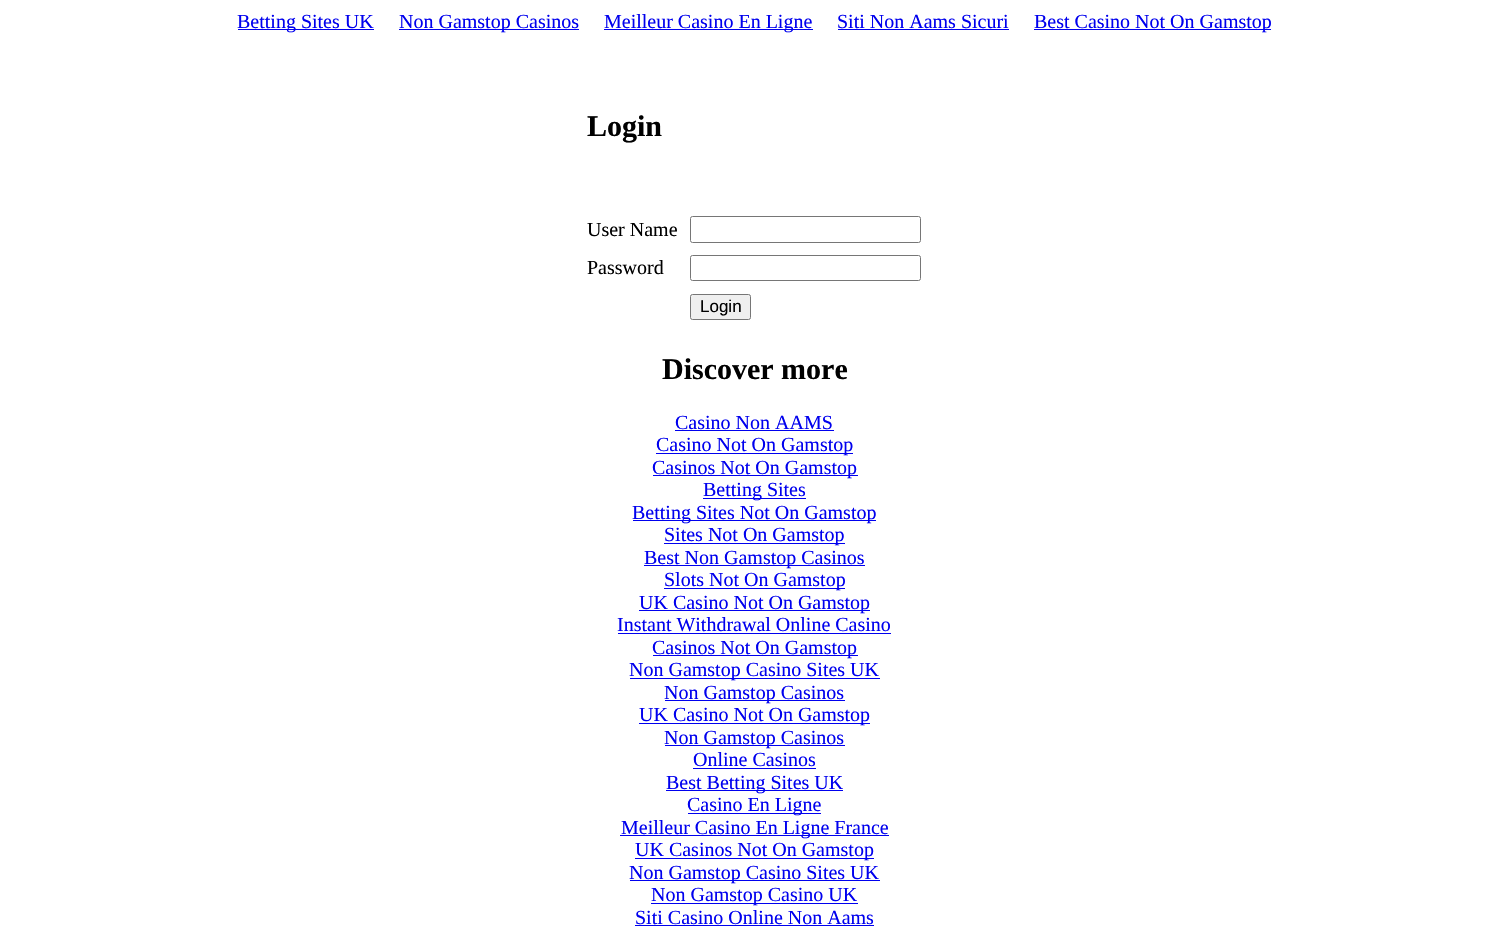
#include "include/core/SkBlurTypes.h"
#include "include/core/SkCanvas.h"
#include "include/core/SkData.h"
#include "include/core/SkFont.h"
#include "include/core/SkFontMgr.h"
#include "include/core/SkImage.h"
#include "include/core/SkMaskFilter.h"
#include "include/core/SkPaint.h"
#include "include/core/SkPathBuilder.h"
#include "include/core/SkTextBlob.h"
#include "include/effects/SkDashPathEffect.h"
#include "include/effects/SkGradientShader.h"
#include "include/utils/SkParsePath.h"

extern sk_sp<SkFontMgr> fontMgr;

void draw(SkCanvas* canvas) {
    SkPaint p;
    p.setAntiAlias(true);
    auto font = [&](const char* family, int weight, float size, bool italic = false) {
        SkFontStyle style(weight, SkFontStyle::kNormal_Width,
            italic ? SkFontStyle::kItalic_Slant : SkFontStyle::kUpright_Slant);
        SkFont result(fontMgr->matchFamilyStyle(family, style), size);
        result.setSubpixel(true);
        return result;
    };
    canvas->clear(0xFFFFFFFF);
    p.setColor(0xFF0000EE);
    canvas->drawRect(SkRect::MakeLTRB(238, 29, 374, 30), p);
    auto font1 = font("Liberation Serif", 400, 20);
    canvas->drawString("Betting Sites UK", 237, 28, font1, p);
    canvas->drawRect(SkRect::MakeLTRB(399, 29, 579, 30), p);
    canvas->drawString("Non Gamstop Casinos", 399, 28, font1, p);
    canvas->drawRect(SkRect::MakeLTRB(604, 29, 813, 30), p);
    canvas->drawString("Meilleur Casino En Ligne", 604, 28, font1, p);
    canvas->drawString("Siti Non Aams Sicuri", 837, 28, font1, p);
    canvas->drawRect(SkRect::MakeLTRB(838, 29, 1009, 30), p);
    canvas->drawRect(SkRect::MakeLTRB(1034, 29, 1271, 30), p);
    canvas->drawString("Best Casino Not On Gamstop", 1034, 28, font1, p);
    auto font2 = font("Liberation Serif", 700, 30);
    p.setColor(0xFF000000);
    canvas->drawString("Login", 587, 136, font2, p);
    canvas->drawString("User Name", 587, 236, font1, p);
    p.setStyle(SkPaint::kStroke_Style);
    p.setStrokeWidth(1);
    p.setColor(0xFF767676);
    canvas->drawRoundRect(SkRect::MakeLTRB(690.5f, 216.5f, 920.5f, 242.5f), 2, 2, p);
    p.setStyle(SkPaint::kFill_Style);
    p.setColor(0xFF000000);
    canvas->drawString("Password", 587, 274, font1, p);
    p.setStyle(SkPaint::kStroke_Style);
    p.setColor(0xFF767676);
    canvas->drawRoundRect(SkRect::MakeLTRB(690.5f, 255.5f, 920.5f, 280.5f), 2, 2, p);
    p.setStyle(SkPaint::kFill_Style);
    p.setColor(0xFFEFEFEF);
    canvas->drawRoundRect(SkRect::MakeLTRB(690.5f, 294.5f, 750.5f, 319.5f), 2, 2, p);
    p.setStyle(SkPaint::kStroke_Style);
    p.setColor(0xFF767676);
    canvas->drawRoundRect(SkRect::MakeLTRB(690.5f, 294.5f, 750.5f, 319.5f), 2, 2, p);
    auto font3 = font("Liberation Sans", 400, 17);
    p.setStyle(SkPaint::kFill_Style);
    p.setColor(0xFF000000);
    canvas->drawString("Login", 700, 312, font3, p);
    canvas->drawString("Discover more", 662, 379, font2, p);
    p.setColor(0xFF0000EE);
    canvas->drawString("Casino Non AAMS", 675, 429, font1, p);
    canvas->drawRect(SkRect::MakeLTRB(675, 430, 834, 431), p);
    canvas->drawRect(SkRect::MakeLTRB(656, 453, 853, 454), p);
    canvas->drawString("Casino Not On Gamstop", 656, 451, font1, p);
    canvas->drawRect(SkRect::MakeLTRB(653, 475, 858, 476), p);
    canvas->drawString("Casinos Not On Gamstop", 652, 474, font1, p);
    canvas->drawRect(SkRect::MakeLTRB(703, 498, 806, 499), p);
    canvas->drawString("Betting Sites", 703, 496, font1, p);
    canvas->drawRect(SkRect::MakeLTRB(633, 520, 876, 521), p);
    canvas->drawString("Betting Sites Not On Gamstop", 632, 519, font1, p);
    canvas->drawRect(SkRect::MakeLTRB(664, 543, 845, 544), p);
    canvas->drawString("Sites Not On Gamstop", 664, 541, font1, p);
    canvas->drawRect(SkRect::MakeLTRB(644, 565, 865, 566), p);
    canvas->drawString("Best Non Gamstop Casinos", 644, 564, font1, p);
    canvas->drawRect(SkRect::MakeLTRB(664, 588, 845, 589), p);
    canvas->drawString("Slots Not On Gamstop", 664, 586, font1, p);
    canvas->drawRect(SkRect::MakeLTRB(639, 610, 870, 611), p);
    canvas->drawString("UK Casino Not On Gamstop", 639, 609, font1, p);
    canvas->drawString("Instant Withdrawal Online Casino", 617, 631, font1, p);
    canvas->drawRect(SkRect::MakeLTRB(618, 633, 891, 634), p);
    canvas->drawRect(SkRect::MakeLTRB(653, 655, 858, 656), p);
    canvas->drawString("Casinos Not On Gamstop", 652, 654, font1, p);
    canvas->drawRect(SkRect::MakeLTRB(630, 678, 880, 679), p);
    canvas->drawString("Non Gamstop Casino Sites UK", 629, 676, font1, p);
    canvas->drawRect(SkRect::MakeLTRB(665, 700, 845, 701), p);
    canvas->drawString("Non Gamstop Casinos", 664, 699, font1, p);
    canvas->drawRect(SkRect::MakeLTRB(639, 723, 870, 724), p);
    canvas->drawString("UK Casino Not On Gamstop", 639, 721, font1, p);
    canvas->drawRect(SkRect::MakeLTRB(665, 745, 845, 746), p);
    canvas->drawString("Non Gamstop Casinos", 664, 744, font1, p);
    canvas->drawString("Online Casinos", 693, 766, font1, p);
    canvas->drawRect(SkRect::MakeLTRB(693, 768, 816, 769), p);
    canvas->drawRect(SkRect::MakeLTRB(666, 790, 843, 791), p);
    canvas->drawString("Best Betting Sites UK", 666, 789, font1, p);
    canvas->drawRect(SkRect::MakeLTRB(688, 813, 821, 814), p);
    canvas->drawString("Casino En Ligne", 687, 811, font1, p);
    canvas->drawRect(SkRect::MakeLTRB(620, 835, 889, 836), p);
    canvas->drawString("Meilleur Casino En Ligne France", 621, 834, font1, p);
    canvas->drawRect(SkRect::MakeLTRB(635, 858, 874, 859), p);
    canvas->drawString("UK Casinos Not On Gamstop", 635, 856, font1, p);
    canvas->drawRect(SkRect::MakeLTRB(630, 880, 880, 881), p);
    canvas->drawString("Non Gamstop Casino Sites UK", 629, 879, font1, p);
    canvas->drawRect(SkRect::MakeLTRB(651, 903, 858, 904), p);
    canvas->drawString("Non Gamstop Casino UK", 651, 901, font1, p);
    canvas->drawString("Siti Casino Online Non Aams", 635, 924, font1, p);
    canvas->drawRect(SkRect::MakeLTRB(635, 925, 874, 926), p);
}
